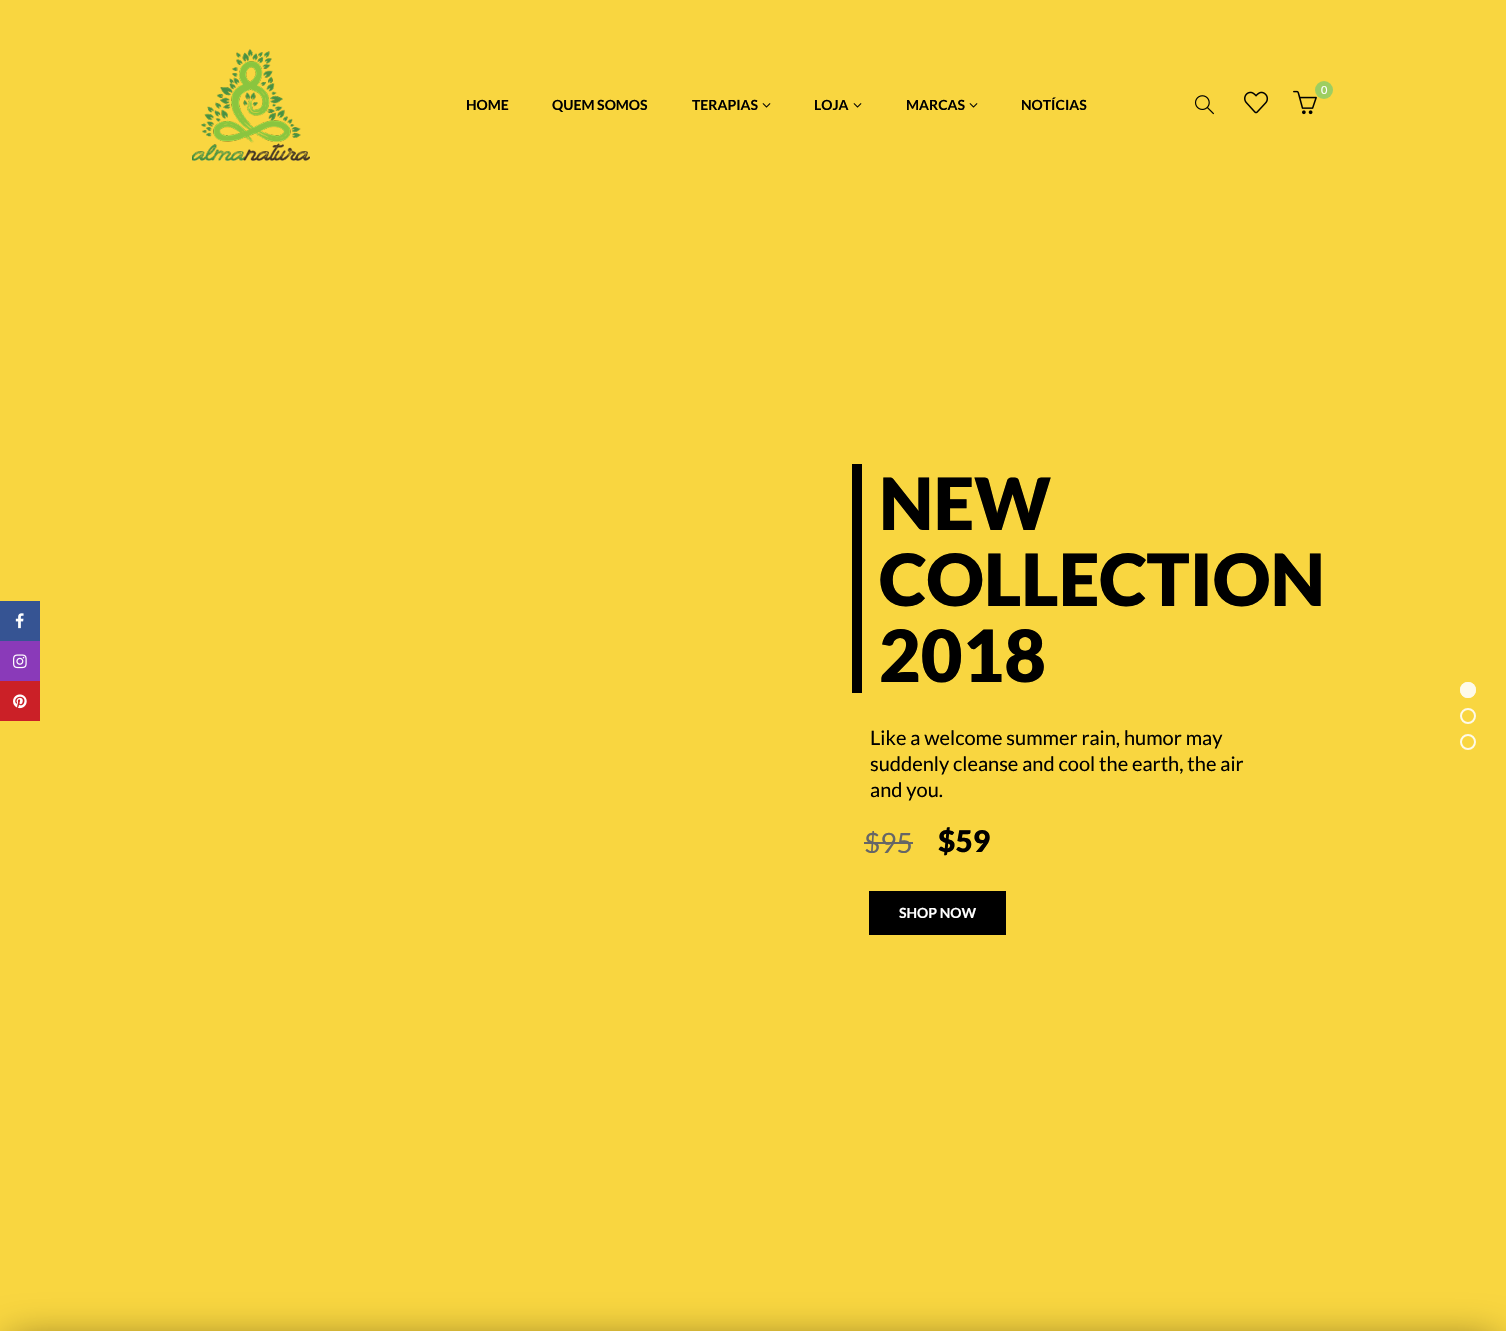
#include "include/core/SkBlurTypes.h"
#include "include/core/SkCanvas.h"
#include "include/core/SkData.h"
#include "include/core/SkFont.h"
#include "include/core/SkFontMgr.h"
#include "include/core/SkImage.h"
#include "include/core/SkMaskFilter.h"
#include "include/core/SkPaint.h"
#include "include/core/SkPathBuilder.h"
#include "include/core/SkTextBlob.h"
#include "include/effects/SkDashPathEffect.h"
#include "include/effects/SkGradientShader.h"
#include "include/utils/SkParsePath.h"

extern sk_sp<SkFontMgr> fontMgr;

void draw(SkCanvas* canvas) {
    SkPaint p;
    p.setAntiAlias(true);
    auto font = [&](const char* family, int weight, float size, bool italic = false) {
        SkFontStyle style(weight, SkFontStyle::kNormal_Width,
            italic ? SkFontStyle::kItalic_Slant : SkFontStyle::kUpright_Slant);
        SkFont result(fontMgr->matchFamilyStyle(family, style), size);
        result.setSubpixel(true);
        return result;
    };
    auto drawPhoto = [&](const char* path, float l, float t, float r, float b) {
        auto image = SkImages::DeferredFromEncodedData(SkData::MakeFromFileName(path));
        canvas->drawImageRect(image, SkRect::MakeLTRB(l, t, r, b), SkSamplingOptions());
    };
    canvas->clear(0xFFF9D640);
    p.setColor(0xFF365493);
    canvas->drawRect(SkRect::MakeLTRB(0, 601, 40, 641), p);
    drawPhoto("media/1.png", 15, 613, 24, 629);
    p.setColor(0xFF8A3AB9);
    canvas->drawRect(SkRect::MakeLTRB(0, 641, 40, 681), p);
    drawPhoto("media/2.png", 13, 654, 27, 669);
    p.setColor(0xFFCB2027);
    canvas->drawRect(SkRect::MakeLTRB(0, 681, 40, 721), p);
    drawPhoto("media/3.png", 13, 694, 27, 709);
    drawPhoto("media/4.png", 191, 49, 311, 161);
    auto font1 = font("Lato", 700, 14);
    p.setColor(0xFF000000);
    {
        const struct { const char* s; float x, y; } items[] = {
            {"HOME", 466, 110},
            {"QUEM SOMOS", 552, 110},
            {"TERAPIAS", 692, 110},
        };
        for (auto [s, x, y] : items) {
            canvas->drawString(s, x, y, font1, p);
        }
    }
    drawPhoto("media/5.png", 762, 103, 771, 108);
    canvas->drawString("LOJA", 814, 110, font1, p);
    drawPhoto("media/5.png", 853, 103, 862, 108);
    canvas->drawString("MARCAS", 906, 110, font1, p);
    drawPhoto("media/5.png", 969, 103, 978, 108);
    canvas->drawString("NOTÍCIAS", 1021, 110, font1, p);
    drawPhoto("media/6.png", 1194, 95, 1214, 115);
    drawPhoto("media/7.png", 1244, 91, 1269, 114);
    drawPhoto("media/8.png", 1293, 90, 1317, 115);
    p.setColor(0xFF9DCE61);
    canvas->drawCircle(1324, 90, 9, p);
    auto font2 = font("Lato", 400, 11);
    p.setColor(0xFFFFFFFF);
    canvas->drawString("0", 1321, 94, font2, p);
    p.setColor(0xFF000000);
    canvas->drawRect(SkRect::MakeLTRB(852, 464, 862, 693), p);
    auto font3 = font("Lato", 900, 72);
    {
        const struct { const char* s; float x, y; } items[] = {
            {"NEW", 879, 530},
            {"COLLECTION", 879, 606},
            {"2018", 879, 682},
        };
        for (auto [s, x, y] : items) {
            canvas->drawString(s, x, y, font3, p);
        }
    }
    auto font4 = font("Lato", 400, 20);
    {
        const struct { const char* s; float x, y; } items[] = {
            {"Like a welcome summer rain, humor may", 870, 745},
            {"suddenly cleanse and cool the earth, the air", 870, 771},
            {"and you.", 870, 797},
        };
        for (auto [s, x, y] : items) {
            canvas->drawString(s, x, y, font4, p);
        }
    }
    canvas->save();
    canvas->clipRect(SkRect::MakeLTRB(864, 831, 913, 853));
    auto font5 = font("Lato", 400, 28);
    p.setColor(0xFF666666);
    canvas->drawString("$95", 864, 853, font5, p);
    canvas->restore();
    canvas->drawRect(SkRect::MakeLTRB(864, 842, 913, 844), p);
    auto font6 = font("Lato", 900, 30);
    p.setColor(0xFF000000);
    canvas->drawString("$59", 938, 852, font6, p);
    canvas->drawRect(SkRect::MakeLTRB(869, 891, 1006, 935), p);
    p.setColor(0xFFFFFFFF);
    canvas->drawString("SHOP NOW", 899, 918, font1, p);
    p.setStyle(SkPaint::kStroke_Style);
    p.setStrokeWidth(2);
    p.setColor(0xFFFEFAE9);
    canvas->drawCircle(1468, 690, 7, p);
    p.setStyle(SkPaint::kFill_Style);
    canvas->drawCircle(1468, 690, 8, p);
    p.setStyle(SkPaint::kStroke_Style);
    canvas->drawCircle(1468, 716, 7, p);
    canvas->drawCircle(1468, 742, 7, p);
    p.setStyle(SkPaint::kFill_Style);
    p.setColor(0x80000000);
    p.setMaskFilter(SkMaskFilter::MakeBlur(kNormal_SkBlurStyle, 20));
    canvas->drawRect(SkRect::MakeLTRB(10, 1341, 1496, 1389), p);
    p.setMaskFilter(nullptr);
}
